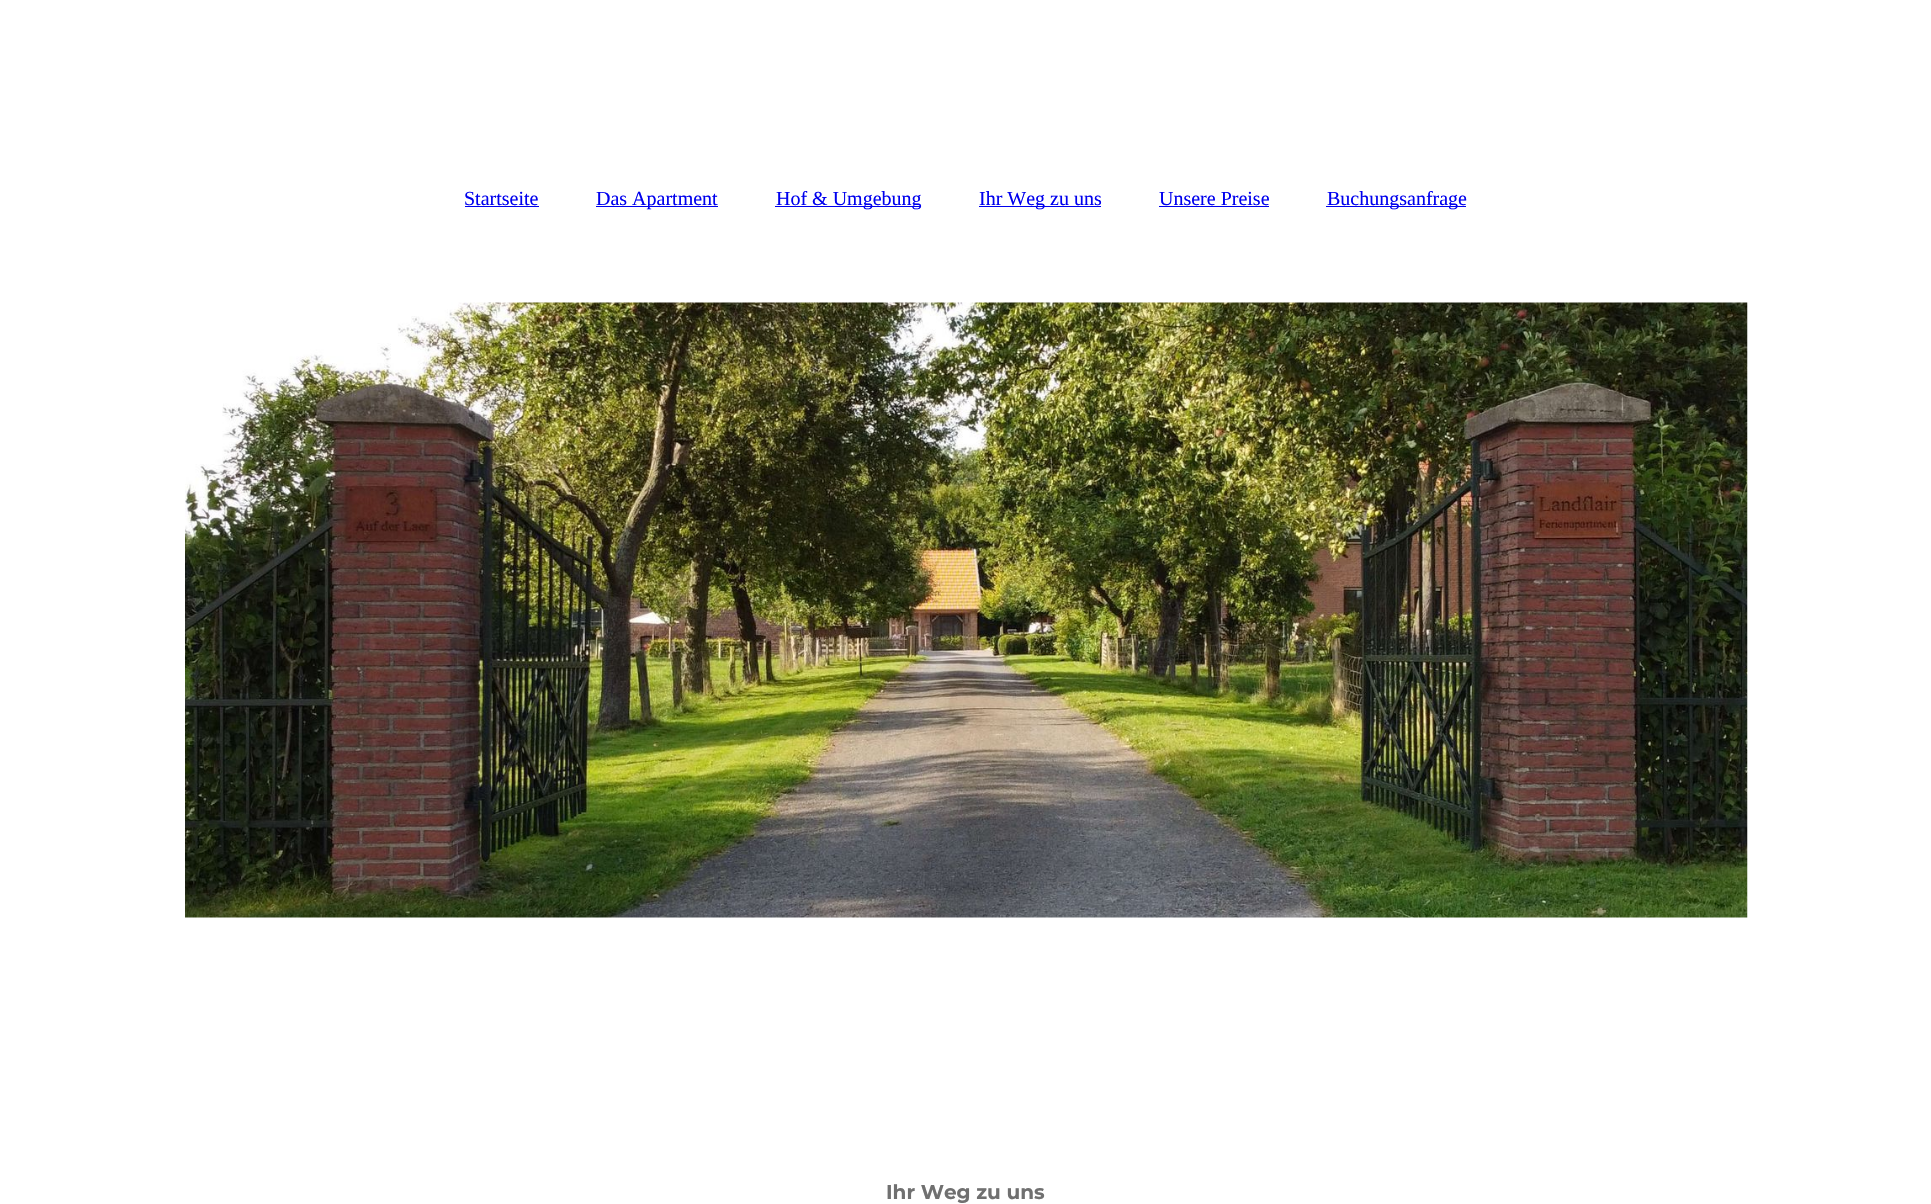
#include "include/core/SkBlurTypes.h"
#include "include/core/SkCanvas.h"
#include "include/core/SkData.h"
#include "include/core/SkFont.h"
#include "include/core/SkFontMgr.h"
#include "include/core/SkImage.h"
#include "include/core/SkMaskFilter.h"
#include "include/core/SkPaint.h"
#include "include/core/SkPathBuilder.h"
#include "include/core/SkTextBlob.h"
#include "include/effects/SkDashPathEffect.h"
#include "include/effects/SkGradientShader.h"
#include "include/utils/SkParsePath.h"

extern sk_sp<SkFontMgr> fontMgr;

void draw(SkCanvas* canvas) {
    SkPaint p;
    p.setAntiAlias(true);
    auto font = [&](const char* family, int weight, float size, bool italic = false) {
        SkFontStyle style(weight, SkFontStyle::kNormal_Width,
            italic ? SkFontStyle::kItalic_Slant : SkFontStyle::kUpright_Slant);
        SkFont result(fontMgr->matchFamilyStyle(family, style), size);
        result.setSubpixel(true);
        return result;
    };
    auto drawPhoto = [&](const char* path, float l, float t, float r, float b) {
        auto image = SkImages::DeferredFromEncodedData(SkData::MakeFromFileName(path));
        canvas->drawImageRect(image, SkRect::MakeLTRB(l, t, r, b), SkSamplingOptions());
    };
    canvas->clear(0xFFFFFFFF);
    auto font1 = font("Liberation Serif", 400, 20);
    p.setColor(0xFF0000EE);
    canvas->drawString("Startseite", 464, 205, font1, p);
    canvas->drawRect(SkRect::MakeLTRB(465, 206, 539, 207), p);
    canvas->drawRect(SkRect::MakeLTRB(596, 206, 718, 207), p);
    canvas->drawString("Das Apartment", 596, 205, font1, p);
    canvas->drawRect(SkRect::MakeLTRB(775, 206, 921, 207), p);
    canvas->drawString("Hof & Umgebung", 776, 205, font1, p);
    canvas->drawRect(SkRect::MakeLTRB(979, 206, 1101, 207), p);
    canvas->drawString("Ihr Weg zu uns", 979, 205, font1, p);
    canvas->drawString("Unsere Preise", 1159, 205, font1, p);
    canvas->drawRect(SkRect::MakeLTRB(1159, 206, 1269, 207), p);
    canvas->drawRect(SkRect::MakeLTRB(1326, 206, 1466, 207), p);
    canvas->drawString("Buchungsanfrage", 1327, 205, font1, p);
    drawPhoto("media/1.png", 185, 302, 1748, 918);
    auto font2 = font("Montserrat", 700, 20);
    p.setColor(0xFF707070);
    canvas->drawString("Ihr Weg zu uns", 886, 1199, font2, p);
}
